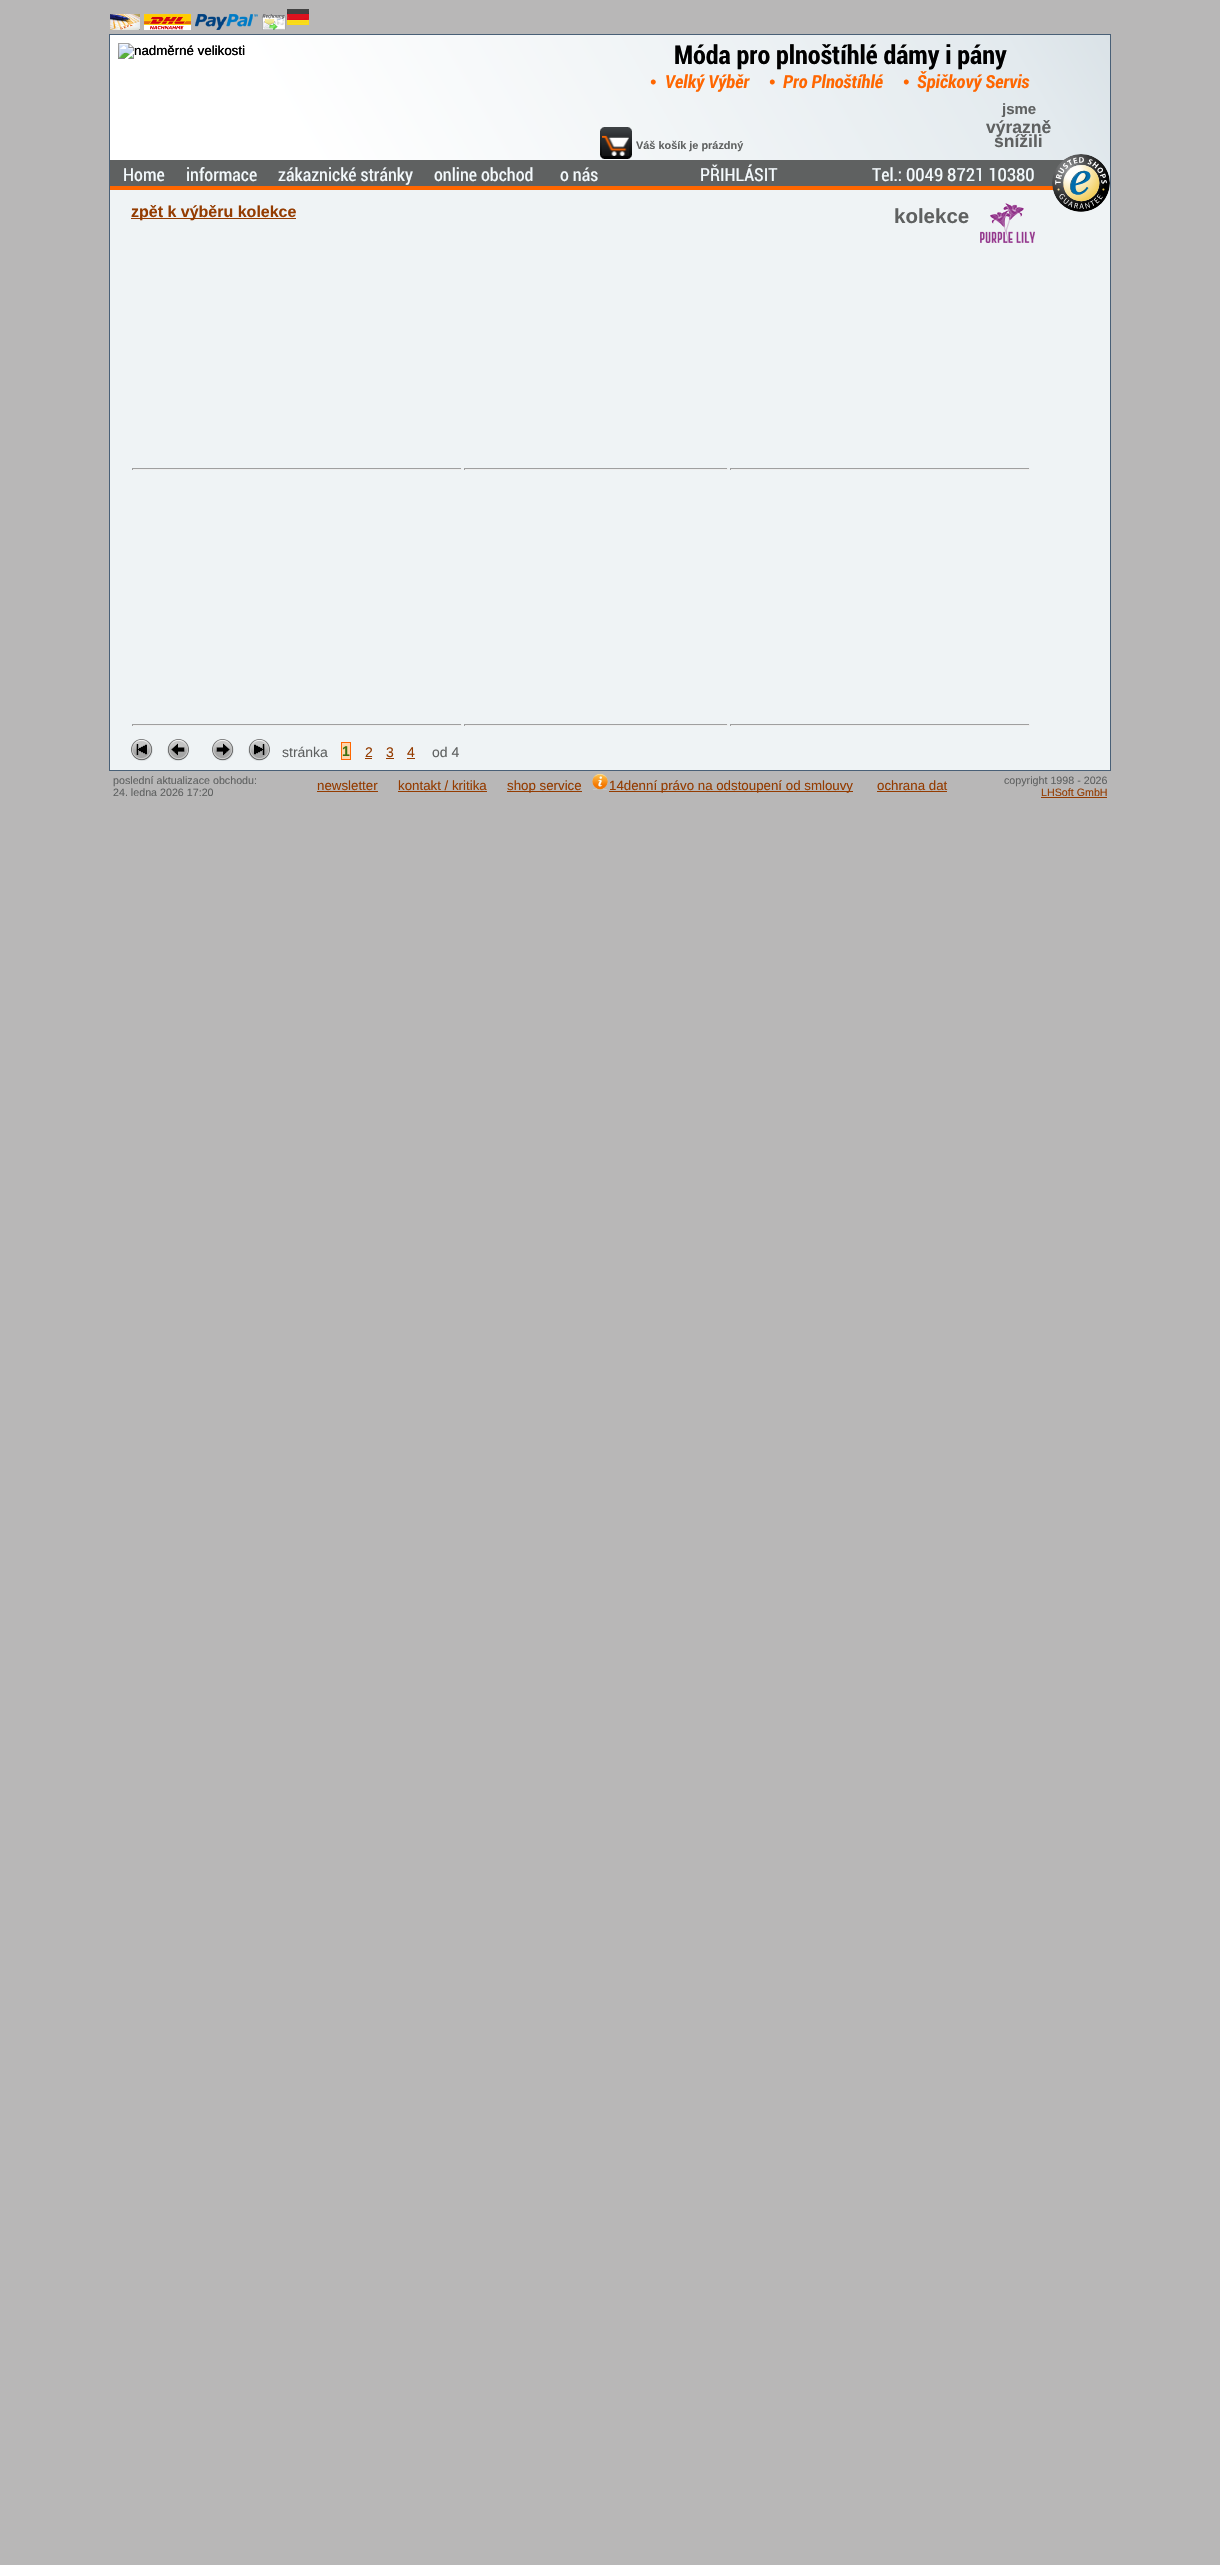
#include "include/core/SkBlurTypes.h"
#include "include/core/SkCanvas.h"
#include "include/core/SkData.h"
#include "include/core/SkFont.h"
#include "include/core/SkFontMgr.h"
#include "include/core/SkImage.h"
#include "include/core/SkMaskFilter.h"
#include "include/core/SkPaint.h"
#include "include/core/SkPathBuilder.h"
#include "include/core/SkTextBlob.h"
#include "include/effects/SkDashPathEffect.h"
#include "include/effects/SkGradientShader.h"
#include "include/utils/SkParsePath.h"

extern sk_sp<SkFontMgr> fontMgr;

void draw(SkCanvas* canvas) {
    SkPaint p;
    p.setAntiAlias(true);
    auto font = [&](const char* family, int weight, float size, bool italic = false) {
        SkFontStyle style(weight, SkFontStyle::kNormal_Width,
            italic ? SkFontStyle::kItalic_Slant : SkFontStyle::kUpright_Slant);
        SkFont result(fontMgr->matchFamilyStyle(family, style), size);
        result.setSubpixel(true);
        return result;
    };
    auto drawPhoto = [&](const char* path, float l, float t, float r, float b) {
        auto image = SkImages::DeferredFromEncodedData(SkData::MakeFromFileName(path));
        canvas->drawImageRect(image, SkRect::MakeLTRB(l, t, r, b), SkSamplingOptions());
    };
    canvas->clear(0xFFB8B7B7);
    drawPhoto("media/1.png", 110, 14, 140, 30);
    drawPhoto("media/2.png", 144, 14, 191, 30);
    drawPhoto("media/3.png", 195, 14, 258, 30);
    drawPhoto("media/4.png", 262, 14, 286, 30);
    drawPhoto("media/5.png", 287, 9, 309, 25);
    p.setColor(0xFFEFF3F5);
    canvas->drawRect(SkRect::MakeLTRB(110, 190, 1110, 770), p);
    p.setStyle(SkPaint::kStroke_Style);
    p.setStrokeWidth(1);
    p.setColor(0xFF496077);
    canvas->drawRect(SkRect::MakeLTRB(109.5f, 34.5f, 1110.5f, 770.5f), p);
    p.setStyle(SkPaint::kFill_Style);
    {
        const SkColor colors[] = {0xFFFFFFFF, 0xFFFFFFFF, 0xFFE3EAEE, 0xFFDAE2E7};
        const float stops[] = {0, 0.2f, 0.9f, 1};
        const SkPoint ends[] = {{201, 348}, {1019, -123}};
        p.setShader(SkGradientShader::MakeLinear(ends, colors, stops, 4, SkTileMode::kClamp));
        p.setAlpha(255);
    }
    canvas->drawRect(SkRect::MakeLTRB(110, 35, 1110, 190), p);
    drawPhoto("media/6.png", 118, 43, 245, 59);
    auto font1 = font("Liberation Sans", 400, 13.3f);
    p.setShader(nullptr);
    p.setColor(0xFF000000);
    canvas->drawString("nadměrné velikosti", 134, 55, font1, p);
    auto font2 = font("Roboto", 700, 26);
    canvas->drawString("Móda pro plnoštíhlé dámy i pány", 674, 64, font2, p);
    auto font3 = font("Liberation Serif", 700, 18, true);
    p.setColor(0xFFFF6600);
    canvas->drawString("•", 650, 88, font3, p);
    auto font4 = font("Roboto", 700, 18, true);
    canvas->drawString("Velký Výběr", 665, 88, font4, p);
    canvas->drawString("•", 769, 88, font3, p);
    canvas->drawString("Pro Plnoštíhlé", 783, 88, font4, p);
    canvas->drawString("•", 903, 88, font3, p);
    canvas->drawString("Špičkový Servis", 917, 88, font4, p);
    drawPhoto("media/7.png", 600, 127, 632, 159);
    auto font5 = font("Liberation Sans", 700, 10.9f);
    p.setColor(0xFF5F6161);
    canvas->drawString("Váš košík je prázdný", 636, 149, font5, p);
    auto font6 = font("Liberation Sans", 700, 15);
    canvas->drawString("jsme", 1002, 114, font6, p);
    auto font7 = font("Liberation Sans", 700, 17.5f);
    canvas->drawString("výrazně", 986, 133, font7, p);
    canvas->drawString("snížili", 994, 147, font7, p);
    canvas->drawRect(SkRect::MakeLTRB(110, 160, 1070, 186), p);
    p.setColor(0xFFFF6600);
    canvas->drawRect(SkRect::MakeLTRB(110, 186, 1070, 190), p);
    auto font8 = font("Roboto", 400, 18);
    p.setColor(0xFFF4FAFD);
    {
        const struct { const char* s; float x, y; } items[] = {
            {"Home", 123, 181},
            {"informace", 186, 181},
            {"zákaznické stránky", 278, 181},
            {"online obchod", 434, 181},
            {"o nás", 560, 181},
            {"PŘIHLÁSIT", 700, 181},
            {"Tel.: 0049 8721 10380", 872, 181},
        };
        for (auto [s, x, y] : items) {
            canvas->drawString(s, x, y, font8, p);
        }
    }
    drawPhoto("media/8.png", 1052, 154, 1110, 212);
    p.setColor(0xFF943C01);
    canvas->drawRect(SkRect::MakeLTRB(131, 218, 296, 219), p);
    auto font9 = font("Liberation Sans", 700, 16);
    canvas->drawString("zpět k výběru kolekce", 131, 217, font9, p);
    {
        const struct { float l, t, r, b; SkColor color; } items[] = {
            {132, 468, 462, 469, 0xFF9F9F9F},
            {461, 468, 462, 470, 0xFFEEEEEE},
            {132, 469, 462, 470, 0xFFEEEEEE},
            {132, 468, 133, 470, 0xFF9F9F9F},
            {464, 468, 728, 469, 0xFF9F9F9F},
            {727, 468, 728, 470, 0xFFEEEEEE},
            {464, 469, 728, 470, 0xFFEEEEEE},
            {464, 468, 465, 470, 0xFF9F9F9F},
            {730, 468, 1030, 469, 0xFF9F9F9F},
            {1029, 468, 1030, 470, 0xFFEEEEEE},
            {730, 469, 1030, 470, 0xFFEEEEEE},
            {730, 468, 731, 470, 0xFF9F9F9F},
            {132, 724, 462, 725, 0xFF9F9F9F},
            {461, 724, 462, 726, 0xFFEEEEEE},
            {132, 725, 462, 726, 0xFFEEEEEE},
            {132, 724, 133, 726, 0xFF9F9F9F},
            {464, 724, 728, 725, 0xFF9F9F9F},
            {727, 724, 728, 726, 0xFFEEEEEE},
            {464, 725, 728, 726, 0xFFEEEEEE},
            {464, 724, 465, 726, 0xFF9F9F9F},
            {730, 724, 1030, 725, 0xFF9F9F9F},
            {1029, 724, 1030, 726, 0xFFEEEEEE},
            {730, 725, 1030, 726, 0xFFEEEEEE},
            {730, 724, 731, 726, 0xFF9F9F9F},
        };
        for (auto [l, t, r, b, color] : items) {
            p.setColor(color);
            canvas->drawRect(SkRect::MakeLTRB(l, t, r, b), p);
        }
    }
    drawPhoto("media/9.png", 131, 739, 153, 761);
    drawPhoto("media/10.png", 167, 739, 189, 761);
    drawPhoto("media/11.png", 212, 739, 234, 761);
    drawPhoto("media/12.png", 248, 739, 270, 761);
    auto font10 = font("Liberation Sans", 400, 14);
    p.setColor(0xFF5F6161);
    canvas->drawString("stránka", 282, 757, font10, p);
    {
        const struct { float l, t, r, b; SkColor color; } items[] = {
            {342, 743, 350, 759, 0xFFFFD5AA},
            {341, 742, 351, 743, 0xFFFF6600},
            {350, 742, 351, 760, 0xFFFF6600},
            {341, 759, 351, 760, 0xFFFF6600},
            {341, 742, 342, 760, 0xFFFF6600},
        };
        for (auto [l, t, r, b, color] : items) {
            p.setColor(color);
            canvas->drawRect(SkRect::MakeLTRB(l, t, r, b), p);
        }
    }
    auto font11 = font("Liberation Sans", 700, 14);
    p.setColor(0xFF3E6F10);
    canvas->drawString("1", 342, 756, font11, p);
    p.setColor(0xFF943C01);
    canvas->drawString("2", 365, 757, font10, p);
    canvas->drawRect(SkRect::MakeLTRB(365, 758, 372, 759), p);
    canvas->drawString("3", 386, 757, font10, p);
    canvas->drawRect(SkRect::MakeLTRB(386, 758, 394, 759), p);
    canvas->drawString("4", 407, 757, font10, p);
    canvas->drawRect(SkRect::MakeLTRB(407, 758, 415, 759), p);
    p.setColor(0xFF5F6161);
    canvas->drawString("od 4", 432, 757, font10, p);
    auto font12 = font("Liberation Sans", 700, 20.5f);
    canvas->drawString("kolekce", 894, 223, font12, p);
    drawPhoto("media/13.png", 980, 203, 1035, 243);
    auto font13 = font("Liberation Sans", 400, 10.7f);
    canvas->drawString("poslední aktualizace obchodu:", 113, 784, font13, p);
    canvas->drawString("24. ledna 2026 17:20", 113, 796, font13, p);
    p.setColor(0xFF943C01);
    canvas->drawString("newsletter", 317, 790, font1, p);
    canvas->drawRect(SkRect::MakeLTRB(317, 791, 378, 792), p);
    canvas->drawString("kontakt / kritika", 398, 790, font1, p);
    canvas->drawRect(SkRect::MakeLTRB(398, 791, 487, 792), p);
    canvas->drawRect(SkRect::MakeLTRB(507, 791, 582, 792), p);
    canvas->drawString("shop service", 507, 790, font1, p);
    drawPhoto("media/14.png", 592, 774, 608, 790);
    canvas->drawRect(SkRect::MakeLTRB(609, 791, 853, 792), p);
    canvas->drawString("14denní právo na odstoupení od smlouvy", 609, 790, font1, p);
    canvas->drawString("ochrana dat", 877, 790, font1, p);
    canvas->drawRect(SkRect::MakeLTRB(877, 791, 947, 792), p);
    p.setColor(0xFF5F6161);
    canvas->drawString("copyright 1998 - 2026", 1004, 784, font13, p);
    p.setColor(0xFF943C01);
    canvas->drawString("LHSoft GmbH", 1041, 796, font13, p);
    canvas->drawRect(SkRect::MakeLTRB(1041, 797, 1107, 798), p);
}
